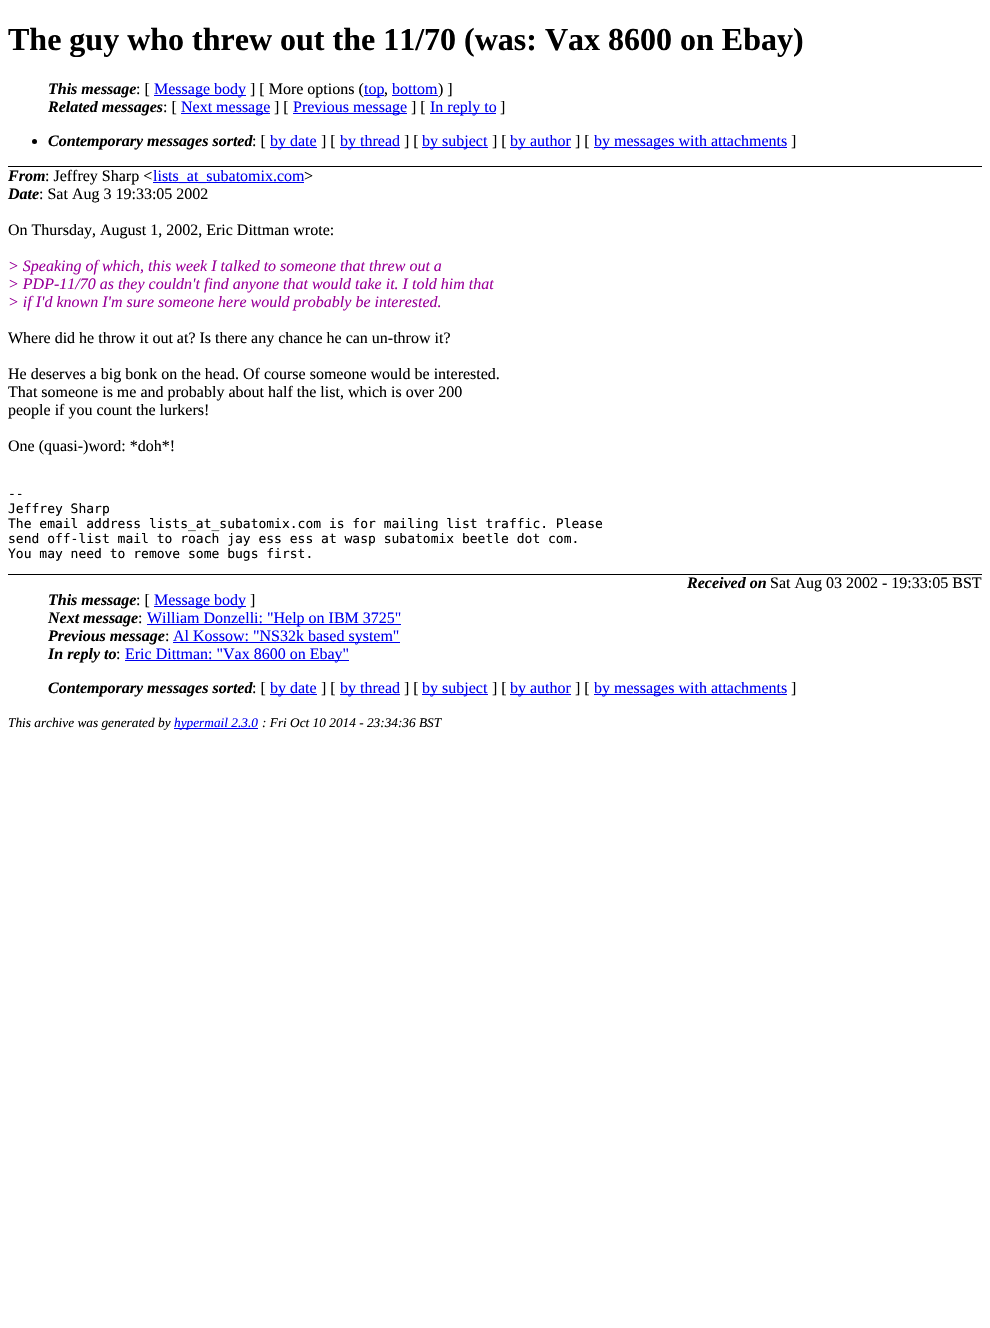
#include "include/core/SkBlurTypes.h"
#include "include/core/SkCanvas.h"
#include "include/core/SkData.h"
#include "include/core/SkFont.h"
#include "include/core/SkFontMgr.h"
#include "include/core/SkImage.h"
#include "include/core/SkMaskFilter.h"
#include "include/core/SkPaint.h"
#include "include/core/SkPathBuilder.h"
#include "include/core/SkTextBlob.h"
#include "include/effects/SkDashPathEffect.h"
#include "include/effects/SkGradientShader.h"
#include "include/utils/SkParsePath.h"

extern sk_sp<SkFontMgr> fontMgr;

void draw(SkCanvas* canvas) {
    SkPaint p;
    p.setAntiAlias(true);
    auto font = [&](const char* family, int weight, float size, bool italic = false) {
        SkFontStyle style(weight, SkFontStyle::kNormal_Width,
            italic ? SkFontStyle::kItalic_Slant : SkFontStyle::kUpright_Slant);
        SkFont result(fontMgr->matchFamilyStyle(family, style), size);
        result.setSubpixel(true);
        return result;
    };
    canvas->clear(0xFFFFFFFF);
    p.setColor(0xFF000000);
    canvas->drawRect(SkRect::MakeLTRB(8, 166, 982, 167), p);
    auto font1 = font("Liberation Serif", 700, 32);
    canvas->drawString("The guy who threw out the 11/70 (was: Vax 8600 on Ebay)", 8, 50, font1, p);
    auto font2 = font("Liberation Serif", 700, 16, true);
    canvas->drawString("This message", 48, 94, font2, p);
    auto font3 = font("Liberation Serif", 400, 16);
    canvas->drawString(": [", 136, 94, font3, p);
    p.setColor(0xFF0000EE);
    canvas->drawRect(SkRect::MakeLTRB(154, 95, 246, 96), p);
    canvas->drawString("Message body", 154, 94, font3, p);
    p.setColor(0xFF000000);
    canvas->drawString("] [ More options (", 250, 94, font3, p);
    p.setColor(0xFF0000EE);
    canvas->drawRect(SkRect::MakeLTRB(364, 95, 384, 96), p);
    canvas->drawString("top", 364, 94, font3, p);
    p.setColor(0xFF000000);
    canvas->drawString(",", 384, 94, font3, p);
    p.setColor(0xFF0000EE);
    canvas->drawString("bottom", 392, 94, font3, p);
    canvas->drawRect(SkRect::MakeLTRB(392, 95, 438, 96), p);
    p.setColor(0xFF000000);
    canvas->drawString(") ]", 438, 94, font3, p);
    canvas->drawString("Related messages", 48, 112, font2, p);
    canvas->drawString(": [", 163, 112, font3, p);
    p.setColor(0xFF0000EE);
    canvas->drawRect(SkRect::MakeLTRB(181, 113, 270, 114), p);
    canvas->drawString("Next message", 181, 112, font3, p);
    p.setColor(0xFF000000);
    canvas->drawString("] [", 274, 112, font3, p);
    p.setColor(0xFF0000EE);
    canvas->drawRect(SkRect::MakeLTRB(293, 113, 407, 114), p);
    canvas->drawString("Previous message", 293, 112, font3, p);
    p.setColor(0xFF000000);
    canvas->drawString("] [", 411, 112, font3, p);
    p.setColor(0xFF0000EE);
    canvas->drawRect(SkRect::MakeLTRB(430, 113, 496, 114), p);
    canvas->drawString("In reply to", 430, 112, font3, p);
    p.setColor(0xFF000000);
    canvas->drawString("]", 500, 112, font3, p);
    canvas->drawCircle(34.5f, 141.5f, 2.5f, p);
    canvas->drawString("Contemporary messages sorted", 48, 146, font2, p);
    canvas->drawString(": [", 252, 146, font3, p);
    p.setColor(0xFF0000EE);
    canvas->drawRect(SkRect::MakeLTRB(270, 147, 317, 148), p);
    canvas->drawString("by date", 270, 146, font3, p);
    p.setColor(0xFF000000);
    canvas->drawString("] [", 321, 146, font3, p);
    p.setColor(0xFF0000EE);
    canvas->drawRect(SkRect::MakeLTRB(340, 147, 400, 148), p);
    canvas->drawString("by thread", 340, 146, font3, p);
    p.setColor(0xFF000000);
    canvas->drawString("] [", 404, 146, font3, p);
    p.setColor(0xFF0000EE);
    canvas->drawRect(SkRect::MakeLTRB(422, 147, 488, 148), p);
    canvas->drawString("by subject", 422, 146, font3, p);
    p.setColor(0xFF000000);
    canvas->drawString("] [", 492, 146, font3, p);
    p.setColor(0xFF0000EE);
    canvas->drawRect(SkRect::MakeLTRB(510, 147, 571, 148), p);
    canvas->drawString("by author", 510, 146, font3, p);
    p.setColor(0xFF000000);
    canvas->drawString("] [", 575, 146, font3, p);
    p.setColor(0xFF0000EE);
    canvas->drawRect(SkRect::MakeLTRB(594, 147, 787, 148), p);
    canvas->drawString("by messages with attachments", 594, 146, font3, p);
    p.setColor(0xFF000000);
    canvas->drawString("]", 791, 146, font3, p);
    canvas->drawString("From", 8, 181, font2, p);
    canvas->drawString(": Jeffrey Sharp <", 45, 181, font3, p);
    p.setColor(0xFF0000EE);
    canvas->drawRect(SkRect::MakeLTRB(153, 182, 304, 183), p);
    canvas->drawString("lists_at_subatomix.com", 153, 181, font3, p);
    p.setColor(0xFF000000);
    canvas->drawString(">", 304, 181, font3, p);
    canvas->drawString("Date", 8, 199, font2, p);
    canvas->drawString(": Sat Aug 3 19:33:05 2002", 39, 199, font3, p);
    canvas->drawString("On Thursday, August 1, 2002, Eric Dittman wrote:", 8, 235, font3, p);
    auto font4 = font("Liberation Serif", 400, 16, true);
    p.setColor(0xFF990099);
    {
        const struct { const char* s; float x, y; } items[] = {
            {"> Speaking of which, this week I talked to someone that threw out a", 8, 271},
            {"> PDP-11/70 as they couldn't find anyone that would take it. I told him that", 8, 289},
            {"> if I'd known I'm sure someone here would probably be interested.", 8, 307},
        };
        for (auto [s, x, y] : items) {
            canvas->drawString(s, x, y, font4, p);
        }
    }
    p.setColor(0xFF000000);
    {
        const struct { const char* s; float x, y; } items[] = {
            {"Where did he throw it out at? Is there any chance he can un-throw it?", 8, 343},
            {"He deserves a big bonk on the head. Of course someone would be interested.", 8, 379},
            {"That someone is me and probably about half the list, which is over 200", 8, 397},
            {"people if you count the lurkers!", 8, 415},
            {"One (quasi-)word: *doh*!", 8, 451},
        };
        for (auto [s, x, y] : items) {
            canvas->drawString(s, x, y, font3, p);
        }
    }
    auto font5 = font("DejaVu Sans Mono", 400, 13);
    {
        const struct { const char* s; float x, y; } items[] = {
            {"--", 8, 498},
            {"Jeffrey Sharp", 8, 513},
            {"The email address lists_at_subatomix.com is for mailing list traffic. Please", 8, 528},
            {"send off-list mail to roach jay ess ess at wasp subatomix beetle dot com.", 8, 543},
            {"You may need to remove some bugs first.", 8, 558},
        };
        for (auto [s, x, y] : items) {
            canvas->drawString(s, x, y, font5, p);
        }
    }
    canvas->drawString("Received on", 687, 588, font2, p);
    canvas->drawString("Sat Aug 03 2002 - 19:33:05 BST", 770, 588, font3, p);
    canvas->drawRect(SkRect::MakeLTRB(8, 574, 982, 575), p);
    canvas->drawString("This message", 48, 605, font2, p);
    canvas->drawString(": [", 136, 605, font3, p);
    p.setColor(0xFF0000EE);
    canvas->drawRect(SkRect::MakeLTRB(154, 606, 246, 607), p);
    canvas->drawString("Message body", 154, 605, font3, p);
    p.setColor(0xFF000000);
    canvas->drawString("]", 250, 605, font3, p);
    canvas->drawString("Next message", 48, 623, font2, p);
    canvas->drawString(":", 138, 623, font3, p);
    p.setColor(0xFF0000EE);
    canvas->drawRect(SkRect::MakeLTRB(147, 624, 401, 625), p);
    canvas->drawString("William Donzelli: \"Help on IBM 3725\"", 147, 623, font3, p);
    p.setColor(0xFF000000);
    canvas->drawString("Previous message", 48, 641, font2, p);
    canvas->drawString(":", 165, 641, font3, p);
    p.setColor(0xFF0000EE);
    canvas->drawRect(SkRect::MakeLTRB(173, 642, 400, 643), p);
    canvas->drawString("Al Kossow: \"NS32k based system\"", 173, 641, font3, p);
    p.setColor(0xFF000000);
    canvas->drawString("In reply to", 48, 659, font2, p);
    canvas->drawString(":", 116, 659, font3, p);
    p.setColor(0xFF0000EE);
    canvas->drawRect(SkRect::MakeLTRB(125, 660, 349, 661), p);
    canvas->drawString("Eric Dittman: \"Vax 8600 on Ebay\"", 125, 659, font3, p);
    p.setColor(0xFF000000);
    canvas->drawString("Contemporary messages sorted", 48, 693, font2, p);
    canvas->drawString(": [", 252, 693, font3, p);
    p.setColor(0xFF0000EE);
    canvas->drawRect(SkRect::MakeLTRB(270, 694, 317, 695), p);
    canvas->drawString("by date", 270, 693, font3, p);
    p.setColor(0xFF000000);
    canvas->drawString("] [", 321, 693, font3, p);
    p.setColor(0xFF0000EE);
    canvas->drawRect(SkRect::MakeLTRB(340, 694, 400, 695), p);
    canvas->drawString("by thread", 340, 693, font3, p);
    p.setColor(0xFF000000);
    canvas->drawString("] [", 404, 693, font3, p);
    p.setColor(0xFF0000EE);
    canvas->drawRect(SkRect::MakeLTRB(422, 694, 488, 695), p);
    canvas->drawString("by subject", 422, 693, font3, p);
    p.setColor(0xFF000000);
    canvas->drawString("] [", 492, 693, font3, p);
    p.setColor(0xFF0000EE);
    canvas->drawRect(SkRect::MakeLTRB(510, 694, 571, 695), p);
    canvas->drawString("by author", 510, 693, font3, p);
    p.setColor(0xFF000000);
    canvas->drawString("] [", 575, 693, font3, p);
    p.setColor(0xFF0000EE);
    canvas->drawRect(SkRect::MakeLTRB(594, 694, 787, 695), p);
    canvas->drawString("by messages with attachments", 594, 693, font3, p);
    p.setColor(0xFF000000);
    canvas->drawString("]", 791, 693, font3, p);
    auto font6 = font("Liberation Serif", 400, 13.3f, true);
    canvas->drawString("This archive was generated by", 8, 727, font6, p);
    p.setColor(0xFF0000EE);
    canvas->drawRect(SkRect::MakeLTRB(174, 728, 258, 729), p);
    canvas->drawString("hypermail 2.3.0", 174, 727, font6, p);
    p.setColor(0xFF000000);
    canvas->drawString(": Fri Oct 10 2014 - 23:34:36 BST", 262, 727, font6, p);
}
